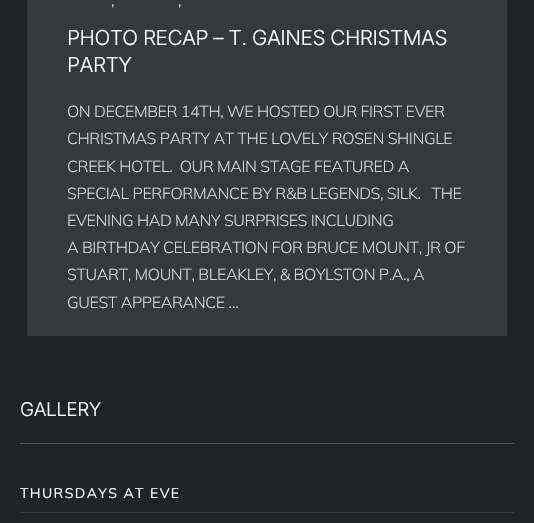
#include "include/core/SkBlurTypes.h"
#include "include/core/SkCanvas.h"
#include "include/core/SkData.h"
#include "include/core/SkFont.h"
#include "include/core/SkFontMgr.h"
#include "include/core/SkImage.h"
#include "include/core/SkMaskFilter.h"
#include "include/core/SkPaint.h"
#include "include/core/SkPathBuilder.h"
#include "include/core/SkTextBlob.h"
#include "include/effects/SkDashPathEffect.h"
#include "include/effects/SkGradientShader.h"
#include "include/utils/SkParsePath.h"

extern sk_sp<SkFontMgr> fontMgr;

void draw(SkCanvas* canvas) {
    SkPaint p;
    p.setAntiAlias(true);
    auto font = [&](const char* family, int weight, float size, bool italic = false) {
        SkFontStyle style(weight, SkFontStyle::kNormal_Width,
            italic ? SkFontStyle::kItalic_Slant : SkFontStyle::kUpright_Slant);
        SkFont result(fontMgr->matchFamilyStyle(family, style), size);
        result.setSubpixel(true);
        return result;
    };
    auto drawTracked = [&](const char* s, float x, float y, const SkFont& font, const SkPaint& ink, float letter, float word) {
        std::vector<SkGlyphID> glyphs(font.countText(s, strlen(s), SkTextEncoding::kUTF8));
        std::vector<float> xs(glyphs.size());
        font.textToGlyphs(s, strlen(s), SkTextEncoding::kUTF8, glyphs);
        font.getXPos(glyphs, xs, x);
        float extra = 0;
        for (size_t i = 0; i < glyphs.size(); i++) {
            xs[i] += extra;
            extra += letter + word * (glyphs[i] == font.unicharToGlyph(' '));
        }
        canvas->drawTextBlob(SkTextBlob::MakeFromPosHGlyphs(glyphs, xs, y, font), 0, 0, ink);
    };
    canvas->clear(0xFF21232B);
    p.setColor(0xFF363840);
    canvas->drawRect(SkRect::MakeLTRB(27, 0, 507, 336), p);
    auto font1 = font("Mulish", 300, 16);
    p.setColor(0xFFD7D7D9);
    drawTracked(",", 111, 6, font1, p, -0.4f, 0);
    drawTracked(",", 178, 6, font1, p, -0.4f, 0);
    auto font2 = font("Inter", 300, 20.75f);
    p.setColor(0xFFFFFFFF);
    drawTracked("PHOTO RECAP – T. GAINES CHRISTMAS", 67, 45, font2, p, -0.5f, 0);
    drawTracked("PARTY", 67, 72, font2, p, -0.5f, 0);
    p.setColor(0xFFD7D7D9);
    {
        const struct { const char* s; float x, y; } items[] = {
            {"ON DECEMBER 14TH, WE HOSTED OUR FIRST EVER", 67, 117},
            {"CHRISTMAS PARTY AT THE LOVELY ROSEN SHINGLE", 67, 144},
            {"CREEK HOTEL.  OUR MAIN STAGE FEATURED A", 67, 172},
            {"SPECIAL PERFORMANCE BY R&B LEGENDS, SILK.   THE", 67, 199},
            {"EVENING HAD MANY SURPRISES INCLUDING", 67, 226},
            {"A BIRTHDAY CELEBRATION FOR BRUCE MOUNT, JR OF", 67, 253},
            {"STUART, MOUNT, BLEAKLEY, & BOYLSTON P.A., A", 67, 280},
            {"GUEST APPEARANCE …", 67, 308},
        };
        for (auto [s, x, y] : items) {
            drawTracked(s, x, y, font1, p, -0.4f, 0);
        }
    }
    p.setColor(0xFF4D4F55);
    canvas->drawRect(SkRect::MakeLTRB(20, 443, 514, 444), p);
    auto font3 = font("Inter", 300, 19);
    p.setColor(0xFFFFFFFF);
    drawTracked("GALLERY", 20, 416, font3, p, -0.5f, 0);
    p.setColor(0xFF373940);
    canvas->drawRect(SkRect::MakeLTRB(20, 512, 514, 513), p);
    auto font4 = font("Mulish", 400, 14);
    p.setColor(0xFFFFFFFF);
    drawTracked("THURSDAYS AT EVE", 20, 498, font4, p, 1.4f, 0);
}
